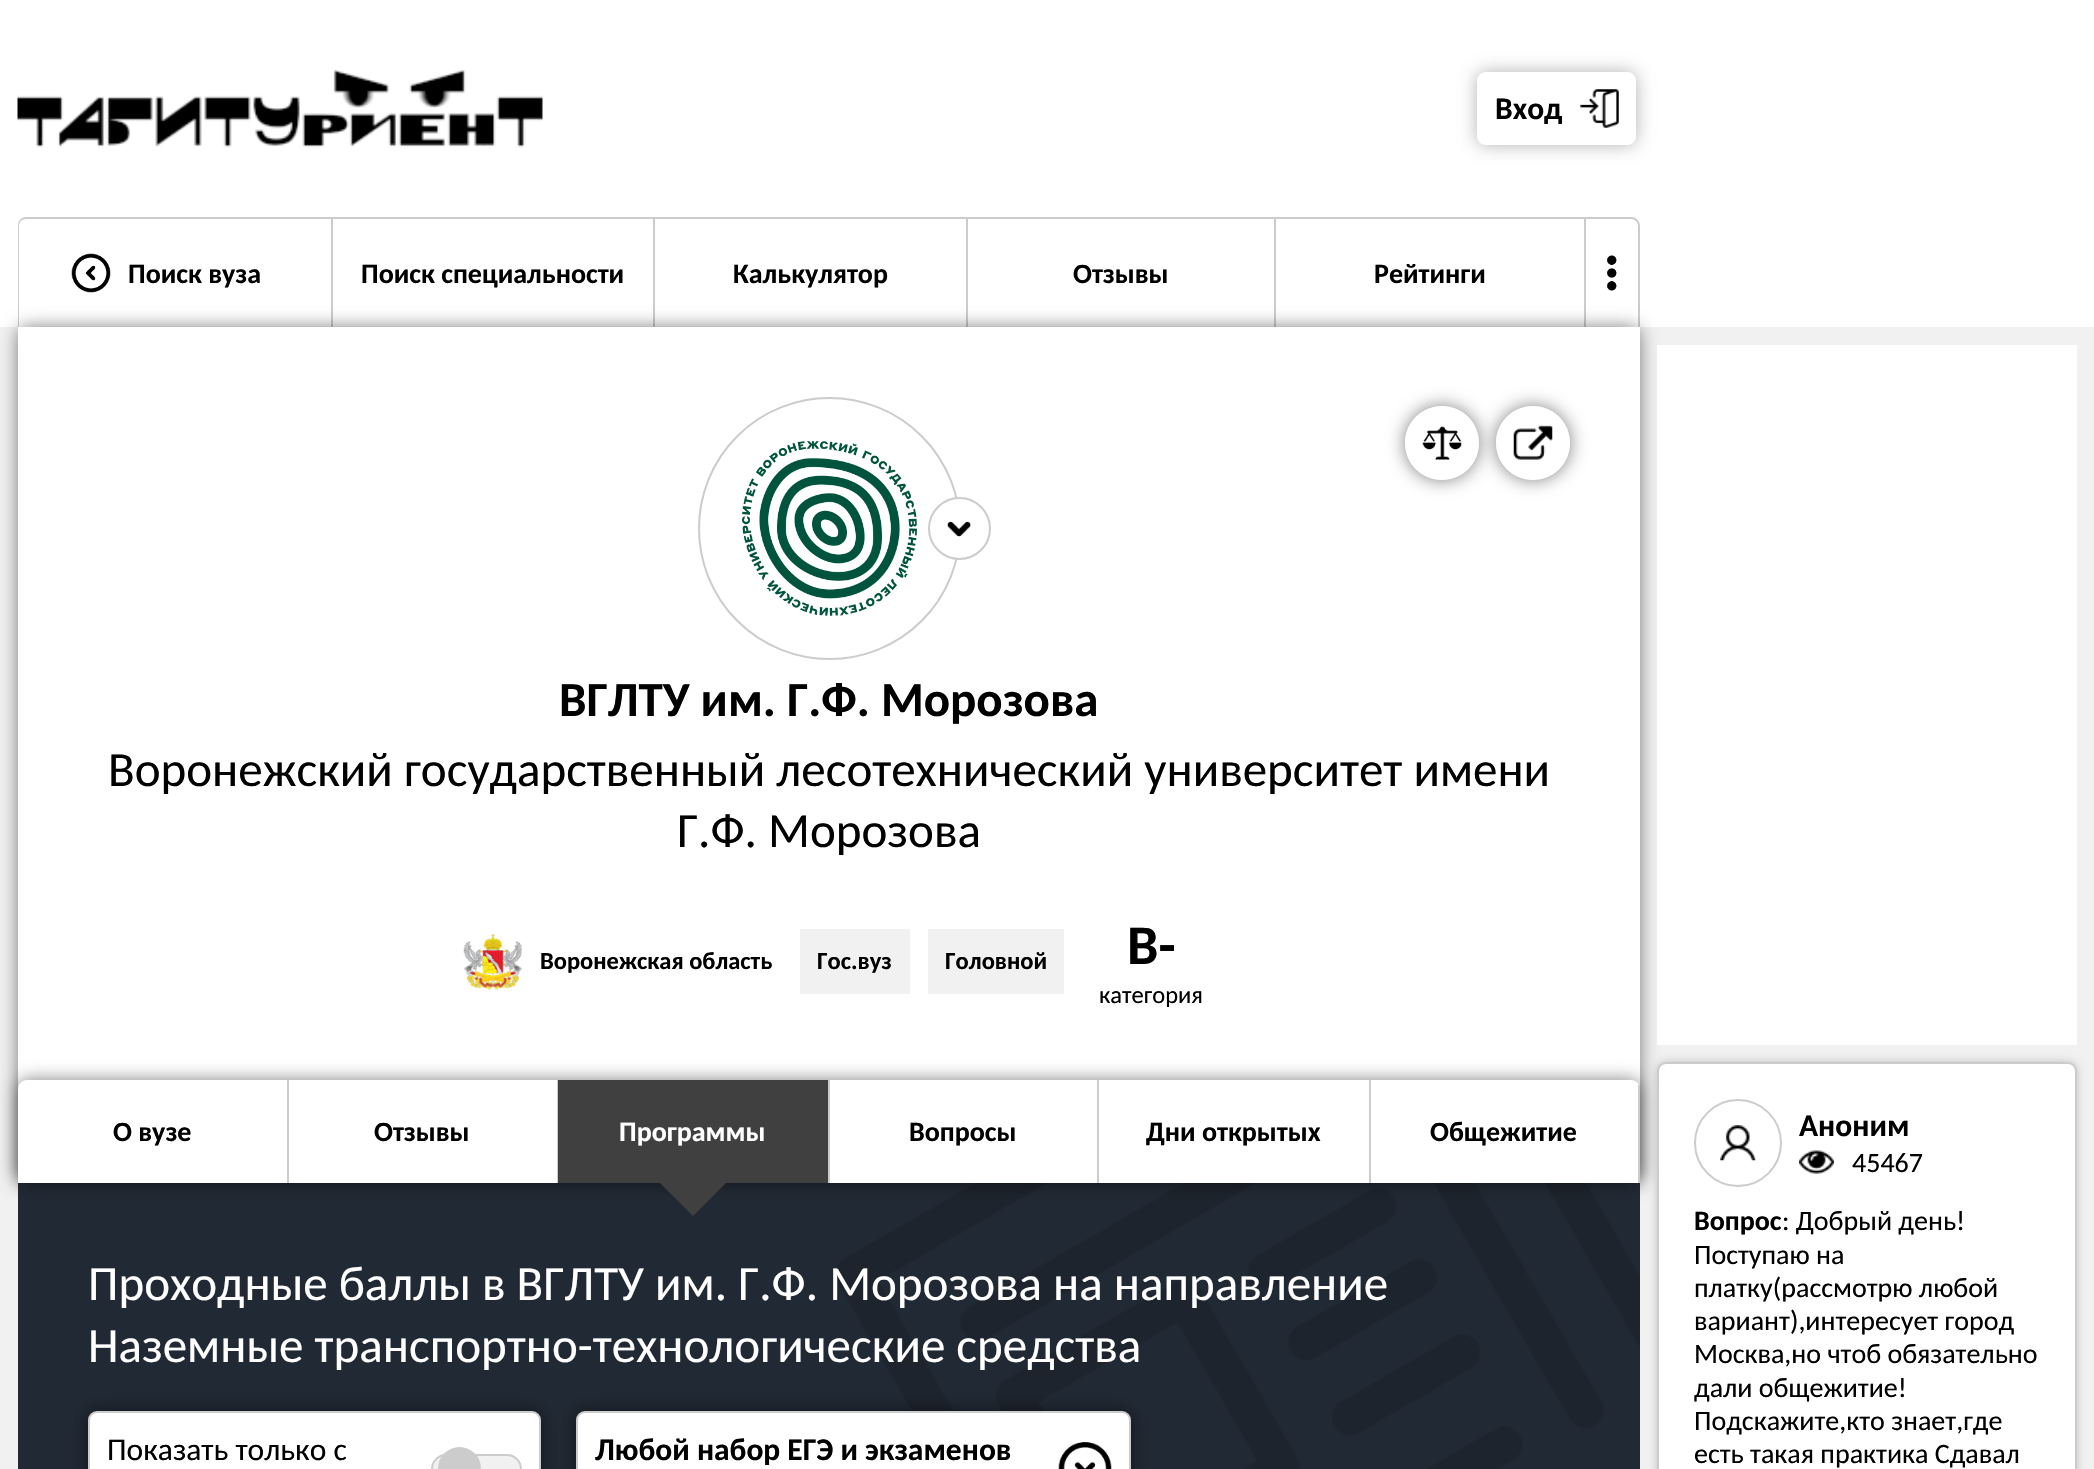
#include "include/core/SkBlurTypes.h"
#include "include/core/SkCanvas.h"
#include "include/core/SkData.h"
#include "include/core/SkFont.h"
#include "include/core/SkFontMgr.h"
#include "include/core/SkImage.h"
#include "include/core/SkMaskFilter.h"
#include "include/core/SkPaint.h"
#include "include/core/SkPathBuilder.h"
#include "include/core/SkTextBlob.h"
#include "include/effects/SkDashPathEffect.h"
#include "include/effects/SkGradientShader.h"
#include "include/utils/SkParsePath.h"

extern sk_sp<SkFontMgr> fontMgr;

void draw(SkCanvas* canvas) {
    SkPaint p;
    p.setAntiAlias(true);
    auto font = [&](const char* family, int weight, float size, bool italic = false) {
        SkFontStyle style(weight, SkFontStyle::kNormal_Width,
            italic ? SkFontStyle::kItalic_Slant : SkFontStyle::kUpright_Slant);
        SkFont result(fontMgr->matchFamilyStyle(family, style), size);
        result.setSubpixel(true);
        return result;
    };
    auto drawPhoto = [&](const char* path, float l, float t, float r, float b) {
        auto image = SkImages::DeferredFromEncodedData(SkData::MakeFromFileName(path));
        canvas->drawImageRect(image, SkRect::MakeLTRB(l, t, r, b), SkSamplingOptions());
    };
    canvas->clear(0xFFF1F1F1);
    p.setColor(0xFFFFFFFF);
    canvas->drawRect(SkRect::MakeLTRB(0, 0, 2094, 327), p);
    drawPhoto("media/1.png", 17, 70, 543, 148);
    canvas->save();
    canvas->clipPath(SkPathBuilder(SkPathFillType::kEvenOdd).moveTo(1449, 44).lineTo(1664, 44).lineTo(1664, 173).lineTo(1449, 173).close().moveTo(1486, 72).lineTo(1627, 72).cubicTo(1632, 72, 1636, 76, 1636, 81).lineTo(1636, 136).cubicTo(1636, 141, 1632, 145, 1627, 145).lineTo(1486, 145).cubicTo(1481, 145, 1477, 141, 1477, 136).lineTo(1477, 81).cubicTo(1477, 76, 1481, 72, 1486, 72).close().detach(), true);
    p.setColor(0x4D000000);
    p.setMaskFilter(SkMaskFilter::MakeBlur(kNormal_SkBlurStyle, 9));
    canvas->drawRoundRect(SkRect::MakeLTRB(1477, 72, 1636, 145), 9, 9, p);
    p.setMaskFilter(nullptr);
    canvas->restore();
    p.setColor(0x99FFFFFF);
    canvas->drawRoundRect(SkRect::MakeLTRB(1477, 72, 1636, 145), 9, 9, p);
    auto font1 = font("Carlito", 700, 31.5f);
    p.setColor(0xFF000000);
    canvas->drawString("Вход", 1495, 119, font1, p);
    drawPhoto("media/2.png", 1580, 89, 1619, 128);
    p.setColor(0xFFCCCCCC);
    canvas->drawPath(SkPathBuilder(SkPathFillType::kEvenOdd).moveTo(26, 217).lineTo(1631, 217).cubicTo(1636, 217, 1640, 221, 1640, 226).lineTo(1640, 327).lineTo(18, 327).lineTo(18, 226).cubicTo(18, 221, 21, 217, 26, 217).close().moveTo(26, 219).lineTo(1631, 219).cubicTo(1635, 219, 1638, 222, 1638, 226).lineTo(1638, 327).lineTo(19, 327).lineTo(19, 226).cubicTo(19, 222, 22, 219, 26, 219).close().detach(), p);
    canvas->drawRect(SkRect::MakeLTRB(331, 219, 333, 327), p);
    drawPhoto("media/3.png", 71, 253, 111, 293);
    auto font2 = font("Carlito", 700, 28);
    p.setColor(0xFF000000);
    canvas->drawString("Поиск вуза", 128, 283, font2, p);
    p.setColor(0xFFCCCCCC);
    canvas->drawRect(SkRect::MakeLTRB(653, 219, 655, 327), p);
    p.setColor(0xFF000000);
    canvas->drawString("Поиск специальности", 361, 283, font2, p);
    p.setColor(0xFFCCCCCC);
    canvas->drawRect(SkRect::MakeLTRB(966, 219, 968, 327), p);
    p.setColor(0xFF000000);
    canvas->drawString("Калькулятор", 733, 283, font2, p);
    p.setColor(0xFFCCCCCC);
    canvas->drawRect(SkRect::MakeLTRB(1274, 219, 1276, 327), p);
    p.setColor(0xFF000000);
    canvas->drawString("Отзывы", 1073, 283, font2, p);
    p.setColor(0xFFCCCCCC);
    canvas->drawRect(SkRect::MakeLTRB(1584, 219, 1586, 327), p);
    p.setColor(0xFF000000);
    canvas->drawString("Рейтинги", 1374, 283, font2, p);
    drawPhoto("media/4.png", 1607, 255, 1617, 291);
    p.setColor(0x80000000);
    p.setMaskFilter(SkMaskFilter::MakeBlur(kNormal_SkBlurStyle, 9));
    canvas->drawRoundRect(SkRect::MakeLTRB(18, 327, 1640, 1183), 9, 9, p);
    p.setMaskFilter(nullptr);
    p.setColor(0xFFFFFFFF);
    canvas->drawRect(SkRect::MakeLTRB(18, 327, 1640, 1089), p);
    canvas->save();
    canvas->clipPath(SkPathBuilder(SkPathFillType::kEvenOdd).moveTo(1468, 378).lineTo(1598, 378).lineTo(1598, 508).lineTo(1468, 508).close().moveTo(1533, 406).cubicTo(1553.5f, 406, 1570, 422.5f, 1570, 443).cubicTo(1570, 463.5f, 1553.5f, 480, 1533, 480).cubicTo(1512.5f, 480, 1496, 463.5f, 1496, 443).cubicTo(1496, 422.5f, 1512.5f, 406, 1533, 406).close().detach(), true);
    p.setColor(0x80000000);
    p.setMaskFilter(SkMaskFilter::MakeBlur(kNormal_SkBlurStyle, 9));
    canvas->drawRoundRect(SkRect::MakeLTRB(1496, 406, 1570, 480), 37, 37, p);
    p.setMaskFilter(nullptr);
    canvas->restore();
    p.setColor(0x99FFFFFF);
    canvas->drawCircle(1533, 443, 37, p);
    canvas->save();
    canvas->clipPath(SkPathBuilder(SkPathFillType::kEvenOdd).moveTo(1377, 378).lineTo(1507, 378).lineTo(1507, 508).lineTo(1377, 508).close().moveTo(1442, 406).cubicTo(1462.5f, 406, 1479, 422.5f, 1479, 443).cubicTo(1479, 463.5f, 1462.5f, 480, 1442, 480).cubicTo(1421.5f, 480, 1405, 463.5f, 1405, 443).cubicTo(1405, 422.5f, 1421.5f, 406, 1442, 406).close().detach(), true);
    p.setColor(0x80000000);
    p.setMaskFilter(SkMaskFilter::MakeBlur(kNormal_SkBlurStyle, 9));
    canvas->drawRoundRect(SkRect::MakeLTRB(1405, 406, 1479, 480), 37, 37, p);
    p.setMaskFilter(nullptr);
    canvas->restore();
    p.setColor(0x99FFFFFF);
    canvas->drawCircle(1442, 443, 37, p);
    drawPhoto("media/5.png", 1422, 426, 1462, 460);
    drawPhoto("media/6.png", 1513, 425, 1553, 460);
    p.setStyle(SkPaint::kStroke_Style);
    p.setStrokeWidth(2);
    p.setColor(0xFFCCCCCC);
    canvas->drawCircle(829.5f, 528.5f, 130.5f, p);
    drawPhoto("media/7.png", 742, 441, 917, 616);
    p.setStyle(SkPaint::kFill_Style);
    p.setColor(0xFFFFFFFF);
    canvas->drawCircle(959.5f, 528.5f, 30.5f, p);
    p.setStyle(SkPaint::kStroke_Style);
    p.setColor(0xFFCCCCCC);
    canvas->drawCircle(959.5f, 528.5f, 30.5f, p);
    drawPhoto("media/8.png", 947, 521, 971, 537);
    auto font3 = font("Carlito", 700, 49);
    p.setStyle(SkPaint::kFill_Style);
    p.setColor(0xFF000000);
    canvas->drawString("ВГЛТУ им. Г.Ф. Морозова", 559, 716, font3, p);
    auto font4 = font("Carlito", 400, 49);
    canvas->drawString("Воронежский государственный лесотехнический университет имени", 108, 786, font4, p);
    canvas->drawString("Г.Ф. Морозова", 677, 847, font4, p);
    drawPhoto("media/9.png", 463, 933, 522, 990);
    auto font5 = font("Carlito", 700, 24.5f);
    canvas->drawString("Воронежская область", 540, 969, font5, p);
    p.setColor(0xFFF1F1F1);
    canvas->drawRect(SkRect::MakeLTRB(800, 929, 910, 994), p);
    p.setColor(0xFF000000);
    canvas->drawString("Гос.вуз", 817, 969, font5, p);
    p.setColor(0xFFF1F1F1);
    canvas->drawRect(SkRect::MakeLTRB(928, 929, 1064, 994), p);
    p.setColor(0xFF000000);
    canvas->drawString("Головной", 945, 969, font5, p);
    auto font6 = font("Carlito", 700, 56);
    canvas->drawString("B-", 1127, 964, font6, p);
    auto font7 = font("Carlito", 400, 24.5f);
    canvas->drawString("категория", 1099, 1003, font7, p);
    p.setColor(0xFF212934);
    canvas->drawRect(SkRect::MakeLTRB(18, 1183, 1640, 1469), p);
    drawPhoto("media/10.png", 836, 1183, 1640, 1469);
    p.setColor(0x80000000);
    p.setMaskFilter(SkMaskFilter::MakeBlur(kNormal_SkBlurStyle, 9));
    canvas->drawRoundRect(SkRect::MakeLTRB(18, 1080, 1640, 1183), 9, 9, p);
    p.setMaskFilter(nullptr);
    p.setColor(0xFFFFFFFF);
    canvas->drawPath(SkPathBuilder().moveTo(27, 1080).lineTo(1631, 1080).cubicTo(1636, 1080, 1640, 1084, 1640, 1089).lineTo(1640, 1183).lineTo(18, 1183).lineTo(18, 1089).cubicTo(18, 1084, 22, 1080, 27, 1080).close().detach(), p);
    p.setColor(0xFFCCCCCC);
    canvas->drawRect(SkRect::MakeLTRB(287, 1080, 289, 1183), p);
    p.setColor(0xFF000000);
    canvas->drawString("О вузе", 113, 1141, font2, p);
    p.setColor(0xFFCCCCCC);
    canvas->drawRect(SkRect::MakeLTRB(557, 1080, 558, 1183), p);
    p.setColor(0xFF000000);
    canvas->drawString("Отзывы", 374, 1141, font2, p);
    p.setColor(0xFF404040);
    canvas->drawRect(SkRect::MakeLTRB(558, 1080, 828, 1183), p);
    p.setColor(0xFFCCCCCC);
    canvas->drawRect(SkRect::MakeLTRB(828, 1080, 830, 1183), p);
    p.setColor(0xFFFFFFFF);
    canvas->drawString("Программы", 619, 1141, font2, p);
    p.setColor(0xFF404040);
    canvas->drawPath(SkPathBuilder().moveTo(658, 1181).lineTo(728, 1181).lineTo(693, 1216).close().detach(), p);
    p.setColor(0xFFCCCCCC);
    canvas->drawRect(SkRect::MakeLTRB(1097, 1080, 1099, 1183), p);
    p.setColor(0xFF000000);
    canvas->drawString("Вопросы", 909, 1141, font2, p);
    p.setColor(0xFFCCCCCC);
    canvas->drawRect(SkRect::MakeLTRB(1369, 1080, 1371, 1183), p);
    p.setColor(0xFF000000);
    canvas->drawString("Дни открытых", 1146, 1141, font2, p);
    p.setColor(0xFFCCCCCC);
    canvas->drawRect(SkRect::MakeLTRB(1638, 1085, 1640, 1183), p);
    p.setColor(0xFF000000);
    canvas->drawString("Общежитие", 1430, 1141, font2, p);
    p.setColor(0xFFFFFFFF);
    canvas->drawString("Проходные баллы в ВГЛТУ им. Г.Ф. Морозова на направление", 88, 1300, font4, p);
    canvas->drawString("Наземные транспортно-технологические средства", 88, 1362, font4, p);
    p.setColor(0x80000000);
    p.setMaskFilter(SkMaskFilter::MakeBlur(kNormal_SkBlurStyle, 9));
    canvas->drawRoundRect(SkRect::MakeLTRB(88, 1411, 541, 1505), 9, 9, p);
    p.setMaskFilter(nullptr);
    p.setColor(0xFFFFFFFF);
    canvas->drawRoundRect(SkRect::MakeLTRB(89, 1412, 540, 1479), 8, 8, p);
    p.setStyle(SkPaint::kStroke_Style);
    p.setColor(0xFFCCCCCC);
    canvas->drawRoundRect(SkRect::MakeLTRB(89, 1412, 540, 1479), 8, 8, p);
    auto font8 = font("Carlito", 400, 31.5f);
    p.setStyle(SkPaint::kFill_Style);
    p.setColor(0xFF000000);
    canvas->drawString("Показать только с", 107, 1460, font8, p);
    p.setColor(0xFFF1F1F1);
    canvas->drawRoundRect(SkRect::MakeLTRB(432, 1455, 521, 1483), 14, 14, p);
    p.setStyle(SkPaint::kStroke_Style);
    p.setColor(0xFFCCCCCC);
    canvas->drawRoundRect(SkRect::MakeLTRB(432, 1455, 521, 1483), 14, 14, p);
    p.setStyle(SkPaint::kFill_Style);
    canvas->drawRoundRect(SkRect::MakeLTRB(438, 1447, 481, 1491), 21.5f, 21.5f, p);
    p.setColor(0x80000000);
    p.setMaskFilter(SkMaskFilter::MakeBlur(kNormal_SkBlurStyle, 9));
    canvas->drawRoundRect(SkRect::MakeLTRB(576, 1411, 1131, 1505), 9, 9, p);
    p.setMaskFilter(nullptr);
    p.setColor(0xFFFFFFFF);
    canvas->drawRoundRect(SkRect::MakeLTRB(577, 1412, 1130, 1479), 8, 8, p);
    p.setStyle(SkPaint::kStroke_Style);
    p.setColor(0xFFCCCCCC);
    canvas->drawRoundRect(SkRect::MakeLTRB(577, 1412, 1130, 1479), 8, 8, p);
    p.setStyle(SkPaint::kFill_Style);
    p.setColor(0xFF000000);
    canvas->drawString("Любой набор ЕГЭ и экзаменов", 595, 1460, font1, p);
    drawPhoto("media/11.png", 1058, 1442, 1112, 1469);
    p.setColor(0xFFFFFFFF);
    canvas->drawRect(SkRect::MakeLTRB(1657, 345, 2077, 1045), p);
    p.setColor(0x33000000);
    p.setMaskFilter(SkMaskFilter::MakeBlur(kNormal_SkBlurStyle, 4.5f));
    canvas->drawRoundRect(SkRect::MakeLTRB(1657, 1062, 2077, 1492), 9, 9, p);
    p.setMaskFilter(nullptr);
    p.setColor(0xFFFFFFFF);
    canvas->drawRoundRect(SkRect::MakeLTRB(1658, 1063, 2076, 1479), 8, 8, p);
    p.setStyle(SkPaint::kStroke_Style);
    p.setColor(0xFFCCCCCC);
    canvas->drawRoundRect(SkRect::MakeLTRB(1658, 1063, 2076, 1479), 8, 8, p);
    canvas->drawCircle(1738, 1143, 43, p);
    drawPhoto("media/12.png", 1720, 1125, 1756, 1161);
    p.setStyle(SkPaint::kFill_Style);
    p.setColor(0xFF000000);
    canvas->drawString("Аноним", 1799, 1136, font1, p);
    drawPhoto("media/13.png", 1799, 1150, 1834, 1174);
    auto font9 = font("Carlito", 400, 28);
    canvas->drawString("45467", 1852, 1172, font9, p);
    canvas->drawString("Вопрос", 1694, 1230, font2, p);
    {
        const struct { const char* s; float x, y; } items[] = {
            {": Добрый день!", 1782, 1230},
            {"Поступаю на", 1694, 1264},
            {"платку(рассмотрю любой", 1694, 1297},
            {"вариант),интересует город", 1694, 1330},
            {"Москва,но чтоб обязательно", 1694, 1363},
            {"дали общежитие!", 1694, 1397},
            {"Подскажите,кто знает,где", 1694, 1430},
            {"есть такая практика Сдавал", 1694, 1463},
        };
        for (auto [s, x, y] : items) {
            canvas->drawString(s, x, y, font9, p);
        }
    }
}
